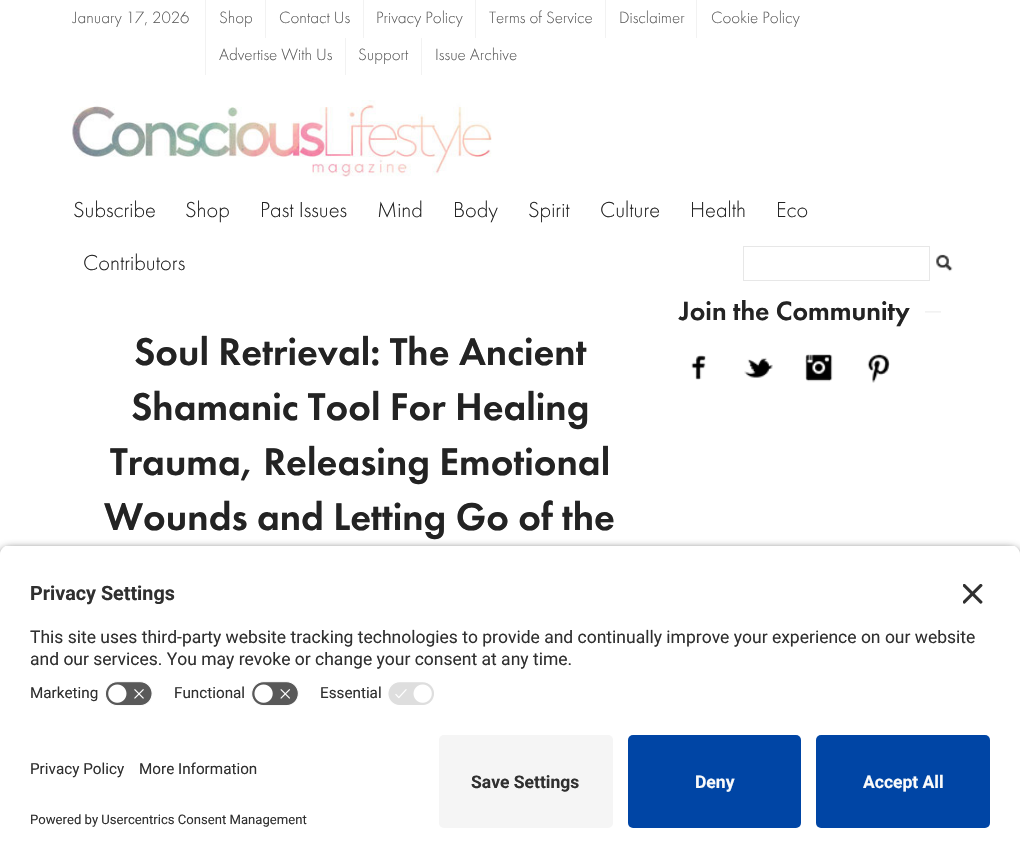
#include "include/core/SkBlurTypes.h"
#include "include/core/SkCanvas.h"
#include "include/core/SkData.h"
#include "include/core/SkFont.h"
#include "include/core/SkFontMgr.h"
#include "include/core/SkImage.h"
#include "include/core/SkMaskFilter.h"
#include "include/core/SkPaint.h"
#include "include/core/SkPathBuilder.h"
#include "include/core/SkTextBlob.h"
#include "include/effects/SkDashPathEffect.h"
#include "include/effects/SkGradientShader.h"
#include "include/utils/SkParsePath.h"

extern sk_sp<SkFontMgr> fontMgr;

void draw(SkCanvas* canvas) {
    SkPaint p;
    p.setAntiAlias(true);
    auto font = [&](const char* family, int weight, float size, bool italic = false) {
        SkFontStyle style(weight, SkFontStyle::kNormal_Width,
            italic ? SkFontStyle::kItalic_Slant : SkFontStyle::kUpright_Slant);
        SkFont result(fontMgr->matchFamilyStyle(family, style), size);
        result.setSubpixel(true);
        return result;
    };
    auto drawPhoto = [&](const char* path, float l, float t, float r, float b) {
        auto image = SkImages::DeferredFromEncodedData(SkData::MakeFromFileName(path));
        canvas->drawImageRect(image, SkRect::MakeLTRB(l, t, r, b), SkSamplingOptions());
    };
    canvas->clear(0xFFFFFFFF);
    auto font1 = font("futura", 300, 17);
    p.setColor(0xFF5E5E5E);
    canvas->drawString("January 17, 2026", 73, 23, font1, p);
    p.setColor(0xFFF2F2F2);
    canvas->drawRect(SkRect::MakeLTRB(205, 0, 206, 75), p);
    p.setColor(0xFF5E5E5E);
    canvas->drawString("Shop", 219, 23, font1, p);
    p.setColor(0xFFF2F2F2);
    canvas->drawRect(SkRect::MakeLTRB(265, 0, 266, 38), p);
    p.setColor(0xFF5E5E5E);
    canvas->drawString("Contact Us", 279, 23, font1, p);
    p.setColor(0xFFF2F2F2);
    canvas->drawRect(SkRect::MakeLTRB(363, 0, 364, 38), p);
    p.setColor(0xFF5E5E5E);
    canvas->drawString("Privacy Policy", 376, 23, font1, p);
    p.setColor(0xFFF2F2F2);
    canvas->drawRect(SkRect::MakeLTRB(475, 0, 476, 38), p);
    p.setColor(0xFF5E5E5E);
    canvas->drawString("Terms of Service", 489, 23, font1, p);
    p.setColor(0xFFF2F2F2);
    canvas->drawRect(SkRect::MakeLTRB(605, 0, 606, 38), p);
    p.setColor(0xFF5E5E5E);
    canvas->drawString("Disclaimer", 619, 23, font1, p);
    p.setColor(0xFFF2F2F2);
    canvas->drawRect(SkRect::MakeLTRB(696, 0, 697, 38), p);
    p.setColor(0xFF5E5E5E);
    canvas->drawString("Cookie Policy", 711, 23, font1, p);
    canvas->drawString("Advertise With Us", 219, 60, font1, p);
    p.setColor(0xFFF2F2F2);
    canvas->drawRect(SkRect::MakeLTRB(345, 38, 346, 75), p);
    p.setColor(0xFF5E5E5E);
    canvas->drawString("Support", 358, 60, font1, p);
    p.setColor(0xFFF2F2F2);
    canvas->drawRect(SkRect::MakeLTRB(421, 38, 422, 75), p);
    p.setColor(0xFF5E5E5E);
    canvas->drawString("Issue Archive", 435, 60, font1, p);
    drawPhoto("media/1.png", 72, 100, 492, 177);
    auto font2 = font("futura", 300, 22.5f);
    p.setColor(0xFF232323);
    {
        const struct { const char* s; float x, y; } items[] = {
            {"Subscribe", 73, 217},
            {"Shop", 185, 217},
            {"Past Issues", 260, 217},
            {"Mind", 377, 217},
            {"Body", 453, 217},
            {"Spirit", 528, 217},
            {"Culture", 600, 217},
            {"Health", 690, 217},
            {"Eco", 776, 217},
            {"Contributors", 83, 270},
        };
        for (auto [s, x, y] : items) {
            canvas->drawString(s, x, y, font2, p);
        }
    }
    p.setStyle(SkPaint::kStroke_Style);
    p.setStrokeWidth(1);
    p.setColor(0xFFE7E7E7);
    canvas->drawRect(SkRect::MakeLTRB(743.5f, 246.5f, 929.5f, 280.5f), p);
    drawPhoto("media/2.png", 936, 254, 953, 272);
    drawPhoto("media/3.png", 925, 311, 941, 313);
    auto font3 = font("futura", 400, 27.5f);
    p.setStyle(SkPaint::kFill_Style);
    p.setColor(0xFF232323);
    canvas->drawString("Join the Community", 679, 320, font3, p);
    drawPhoto("media/4.png", 691, 355, 706, 380);
    drawPhoto("media/5.png", 744, 357, 773, 378);
    drawPhoto("media/6.png", 805, 354, 833, 382);
    drawPhoto("media/7.png", 867, 353, 890, 383);
    auto font4 = font("futura", 400, 40);
    {
        const struct { const char* s; float x, y; } items[] = {
            {"Soul Retrieval: The Ancient", 134, 365},
            {"Shamanic Tool For Healing", 131, 420},
            {"Trauma, Releasing Emotional", 110, 475},
            {"Wounds and Letting Go of the", 104, 530},
        };
        for (auto [s, x, y] : items) {
            canvas->drawString(s, x, y, font4, p);
        }
    }
    p.setColor(0xCC000000);
    p.setMaskFilter(SkMaskFilter::MakeBlur(kNormal_SkBlurStyle, 4.5f));
    canvas->drawRoundRect(SkRect::MakeLTRB(0, 549, 1020, 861), 10, 10, p);
    p.setMaskFilter(nullptr);
    canvas->save();
    canvas->clipPath(SkPathBuilder().moveTo(10, 545).lineTo(1010, 545).cubicTo(1015.5f, 545, 1020, 549.5f, 1020, 555).lineTo(1020, 725).lineTo(0, 725).lineTo(0, 555).cubicTo(0, 549.5f, 4.5f, 545, 10, 545).close().detach(), true);
    p.setColor(0xFFFFFFFF);
    canvas->drawRect(SkRect::MakeLTRB(0, 546, 1020, 725), p);
    canvas->drawRect(SkRect::MakeLTRB(0, 546, 1020, 675), p);
    canvas->restore();
    auto font5 = font("Roboto", 700, 19.75f);
    p.setColor(0xFF303030);
    canvas->drawString("Privacy Settings", 30, 600, font5, p);
    drawPhoto("media/8.png", 963, 584, 983, 604);
    auto font6 = font("Roboto", 400, 17.5f);
    canvas->drawString("This site uses third-party website tracking technologies to provide and continually improve your experience on our website", 30, 643, font6, p);
    canvas->drawString("and our services. You may revoke or change your consent at any time.", 30, 665, font6, p);
    auto font7 = font("Roboto", 400, 15.25f);
    canvas->drawString("Marketing", 30, 698, font7, p);
    drawPhoto("media/9.png", 105, 681, 153, 706);
    canvas->drawString("Functional", 174, 698, font7, p);
    drawPhoto("media/10.png", 251, 681, 299, 706);
    canvas->drawString("Essential", 320, 698, font7, p);
    drawPhoto("media/11.png", 388, 682, 434, 705);
    p.setColor(0xFFFFFFFF);
    canvas->drawRect(SkRect::MakeLTRB(0, 725, 1020, 857), p);
    p.setColor(0xFF303030);
    canvas->drawString("Privacy Policy", 30, 774, font7, p);
    canvas->drawString("More Information", 139, 774, font7, p);
    auto font8 = font("Roboto", 400, 13.1f);
    canvas->drawString("Powered by Usercentrics Consent Management", 30, 824, font8, p);
    p.setColor(0xFFF5F5F5);
    canvas->drawRoundRect(SkRect::MakeLTRB(439, 735, 613, 828), 5, 5, p);
    auto font9 = font("Roboto", 700, 17.5f);
    p.setColor(0xFF303030);
    canvas->drawString("Save Settings", 471, 788, font9, p);
    p.setColor(0xFF0045A5);
    canvas->drawRoundRect(SkRect::MakeLTRB(628, 735, 801, 828), 5, 5, p);
    p.setColor(0xFFFAFAFA);
    canvas->drawString("Deny", 695, 788, font9, p);
    p.setColor(0xFF0045A5);
    canvas->drawRoundRect(SkRect::MakeLTRB(816, 735, 990, 828), 5, 5, p);
    p.setColor(0xFFFAFAFA);
    canvas->drawString("Accept All", 863, 788, font9, p);
}
